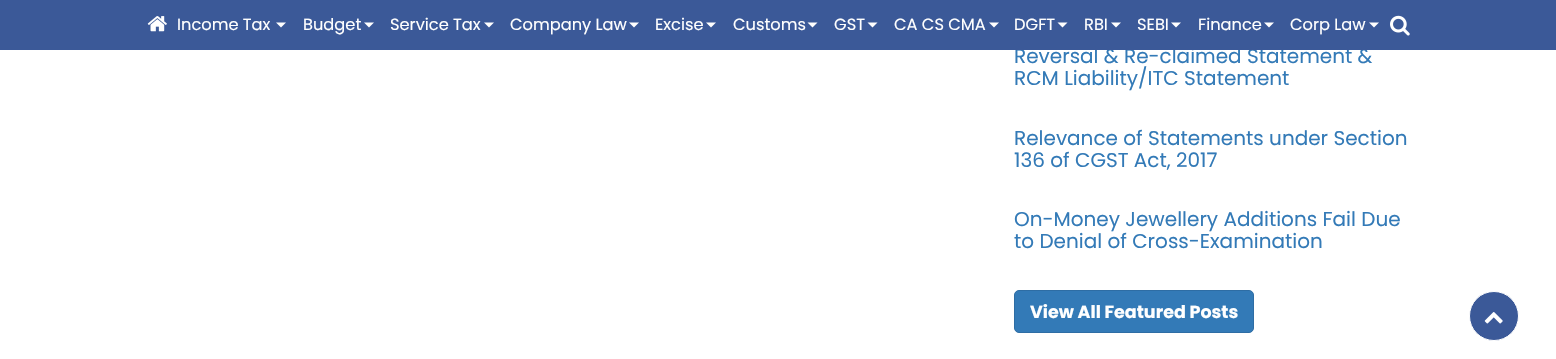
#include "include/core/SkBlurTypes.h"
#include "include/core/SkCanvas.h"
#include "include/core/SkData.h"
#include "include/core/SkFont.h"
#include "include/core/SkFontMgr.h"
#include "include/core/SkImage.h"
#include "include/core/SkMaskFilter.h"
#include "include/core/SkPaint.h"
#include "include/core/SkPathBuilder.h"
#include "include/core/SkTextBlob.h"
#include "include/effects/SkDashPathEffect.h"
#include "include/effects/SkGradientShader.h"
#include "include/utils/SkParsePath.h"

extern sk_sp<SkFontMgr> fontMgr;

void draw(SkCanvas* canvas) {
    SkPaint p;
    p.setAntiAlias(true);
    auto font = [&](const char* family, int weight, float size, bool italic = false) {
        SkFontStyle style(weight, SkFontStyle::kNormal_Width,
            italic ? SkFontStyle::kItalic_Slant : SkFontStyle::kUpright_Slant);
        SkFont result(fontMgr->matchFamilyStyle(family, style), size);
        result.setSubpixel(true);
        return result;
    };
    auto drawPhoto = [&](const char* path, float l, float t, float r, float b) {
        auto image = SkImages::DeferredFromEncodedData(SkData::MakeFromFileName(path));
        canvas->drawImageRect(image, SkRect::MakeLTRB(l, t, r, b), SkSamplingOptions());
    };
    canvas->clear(0xFFFFFFFF);
    auto font1 = font("Poppins", 400, 20);
    p.setColor(0xFF337AB7);
    canvas->drawString("Reversal & Re-claimed Statement &", 1014, 63, font1, p);
    p.setColor(0xFF3B5998);
    canvas->drawRect(SkRect::MakeLTRB(0, 0, 1556, 50), p);
    drawPhoto("media/1.png", 147, 16, 167, 32);
    auto font2 = font("Poppins", 400, 16.25f);
    p.setColor(0xFFFFFFFF);
    canvas->drawString("Income Tax", 177, 30, font2, p);
    canvas->drawPath(SkPathBuilder().moveTo(276, 22.5f).lineTo(286, 22.5f).lineTo(281, 27.5f).close().detach(), p);
    canvas->drawString("Budget", 303, 30, font2, p);
    canvas->drawPath(SkPathBuilder().moveTo(364, 22.5f).lineTo(374, 22.5f).lineTo(369, 27.5f).close().detach(), p);
    canvas->drawString("Service Tax", 390, 30, font2, p);
    canvas->drawPath(SkPathBuilder().moveTo(484, 22.5f).lineTo(494, 22.5f).lineTo(489, 27.5f).close().detach(), p);
    canvas->drawString("Company Law", 510, 30, font2, p);
    canvas->drawPath(SkPathBuilder().moveTo(629, 22.5f).lineTo(639, 22.5f).lineTo(634, 27.5f).close().detach(), p);
    canvas->drawString("Excise", 655, 30, font2, p);
    canvas->drawPath(SkPathBuilder().moveTo(706, 22.5f).lineTo(716, 22.5f).lineTo(711, 27.5f).close().detach(), p);
    canvas->drawString("Customs", 733, 30, font2, p);
    canvas->drawPath(SkPathBuilder().moveTo(807.5f, 22.5f).lineTo(817.5f, 22.5f).lineTo(812.5f, 27.5f).close().detach(), p);
    canvas->drawString("GST", 834, 30, font2, p);
    canvas->drawPath(SkPathBuilder().moveTo(867.5f, 22.5f).lineTo(877.5f, 22.5f).lineTo(872.5f, 27.5f).close().detach(), p);
    canvas->drawString("CA CS CMA", 894, 30, font2, p);
    canvas->drawPath(SkPathBuilder().moveTo(989, 22.5f).lineTo(999, 22.5f).lineTo(994, 27.5f).close().detach(), p);
    canvas->drawString("DGFT", 1014, 30, font2, p);
    canvas->drawPath(SkPathBuilder().moveTo(1057.5f, 22.5f).lineTo(1067.5f, 22.5f).lineTo(1062.5f, 27.5f).close().detach(), p);
    canvas->drawString("RBI", 1084, 30, font2, p);
    canvas->drawPath(SkPathBuilder().moveTo(1111, 22.5f).lineTo(1121, 22.5f).lineTo(1116, 27.5f).close().detach(), p);
    canvas->drawString("SEBI", 1137, 30, font2, p);
    canvas->drawPath(SkPathBuilder().moveTo(1171, 22.5f).lineTo(1181, 22.5f).lineTo(1176, 27.5f).close().detach(), p);
    canvas->drawString("Finance", 1198, 30, font2, p);
    canvas->drawPath(SkPathBuilder().moveTo(1264, 22.5f).lineTo(1274, 22.5f).lineTo(1269, 27.5f).close().detach(), p);
    canvas->drawString("Corp Law", 1290, 30, font2, p);
    canvas->drawPath(SkPathBuilder().moveTo(1369, 22.5f).lineTo(1379, 22.5f).lineTo(1374, 27.5f).close().detach(), p);
    drawPhoto("media/2.png", 1390, 15, 1410, 36);
    p.setColor(0xFF337AB7);
    {
        const struct { const char* s; float x, y; } items[] = {
            {"RCM Liability/ITC Statement", 1014, 85},
            {"Relevance of Statements under Section", 1014, 145},
            {"136 of CGST Act, 2017", 1014, 167},
            {"On-Money Jewellery Additions Fail Due", 1014, 226},
            {"to Denial of Cross-Examination", 1014, 248},
        };
        for (auto [s, x, y] : items) {
            canvas->drawString(s, x, y, font1, p);
        }
    }
    canvas->drawRoundRect(SkRect::MakeLTRB(1014.5f, 290.5f, 1253.5f, 332.5f), 4.5f, 4.5f, p);
    p.setStyle(SkPaint::kStroke_Style);
    p.setStrokeWidth(1);
    p.setColor(0xFF2E6DA4);
    canvas->drawRoundRect(SkRect::MakeLTRB(1014.5f, 290.5f, 1253.5f, 332.5f), 4.5f, 4.5f, p);
    auto font3 = font("Poppins", 700, 17.5f);
    p.setStyle(SkPaint::kFill_Style);
    p.setColor(0xFFFFFFFF);
    canvas->drawString("View All Featured Posts", 1030, 318, font3, p);
    p.setColor(0xFF3B5998);
    canvas->drawCircle(1494, 316, 24.5f, p);
    p.setStyle(SkPaint::kStroke_Style);
    p.setColor(0xFFFFFFFF);
    canvas->drawCircle(1494, 316, 24.5f, p);
    drawPhoto("media/3.png", 1484, 312, 1503, 324);
}
